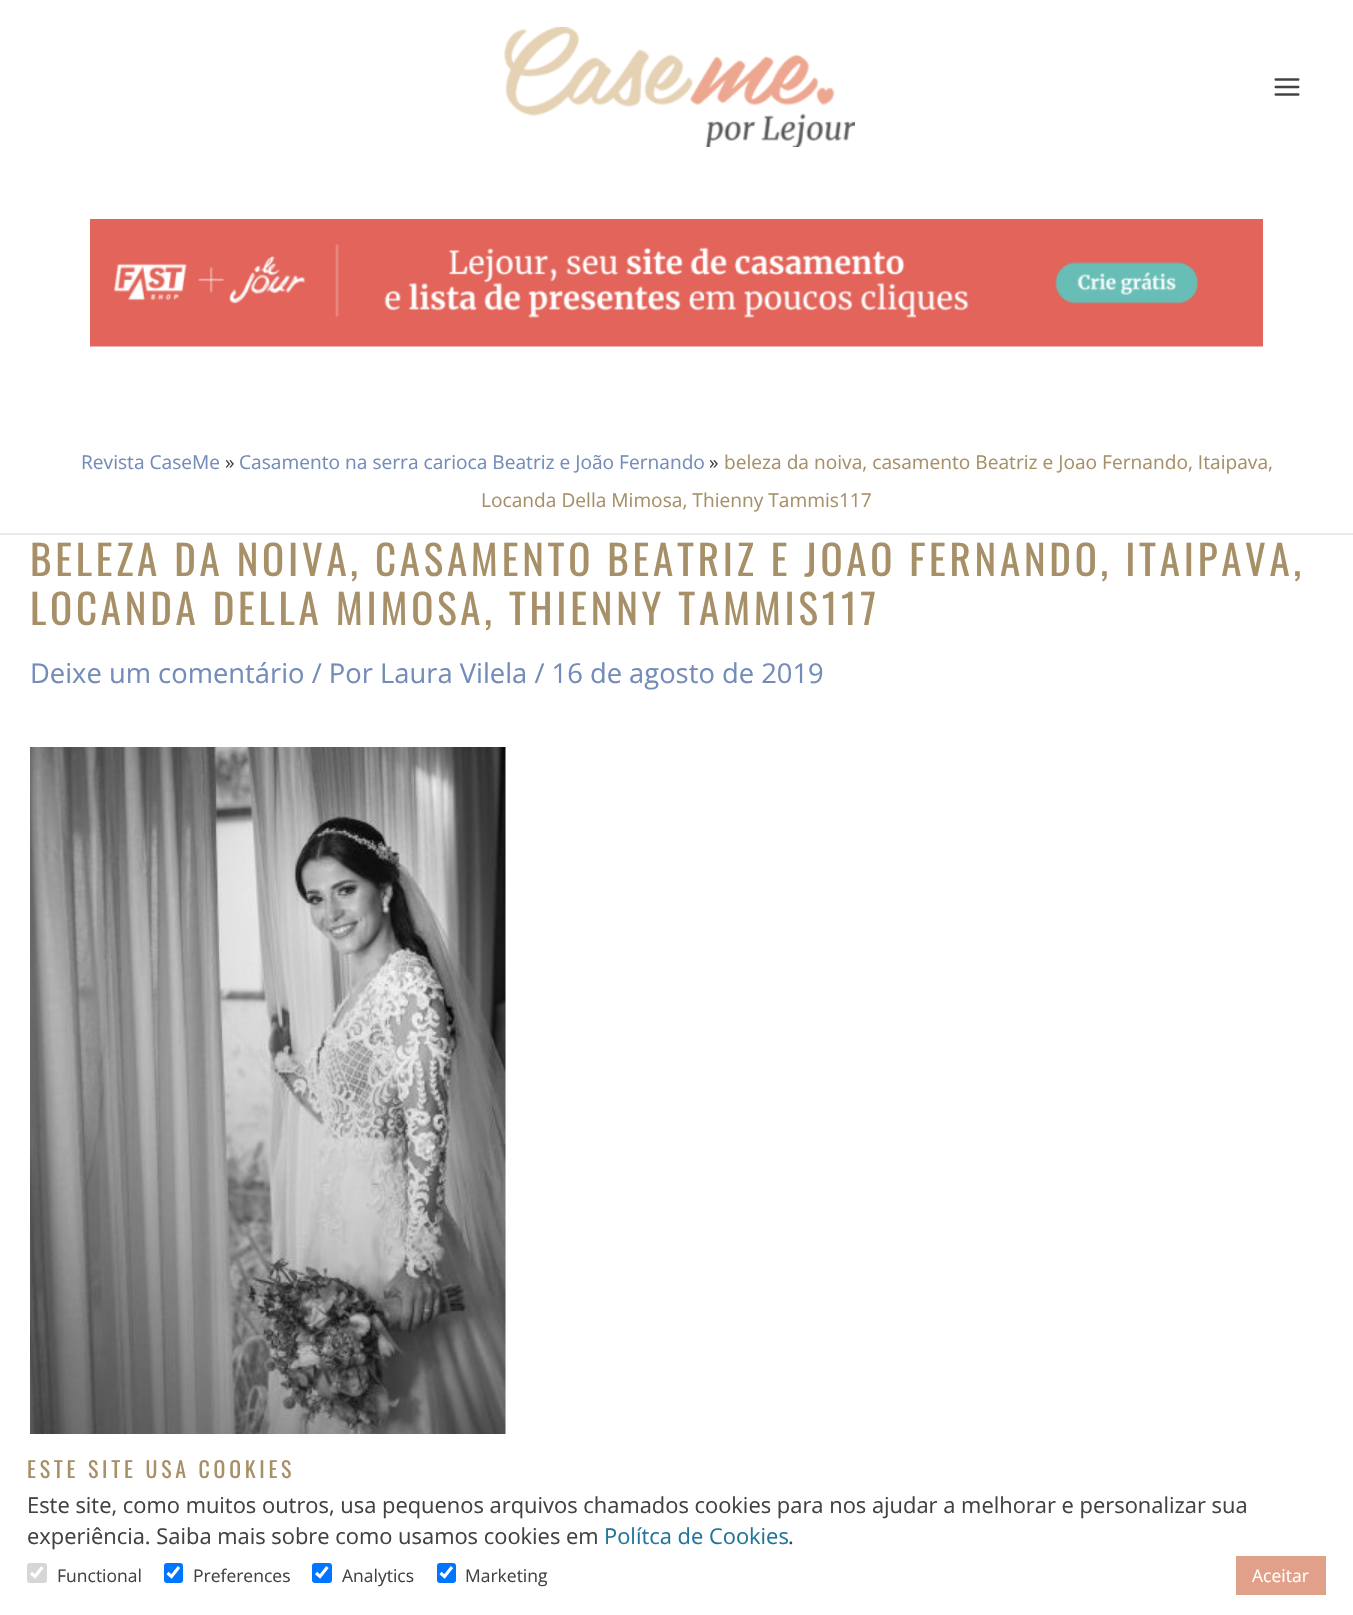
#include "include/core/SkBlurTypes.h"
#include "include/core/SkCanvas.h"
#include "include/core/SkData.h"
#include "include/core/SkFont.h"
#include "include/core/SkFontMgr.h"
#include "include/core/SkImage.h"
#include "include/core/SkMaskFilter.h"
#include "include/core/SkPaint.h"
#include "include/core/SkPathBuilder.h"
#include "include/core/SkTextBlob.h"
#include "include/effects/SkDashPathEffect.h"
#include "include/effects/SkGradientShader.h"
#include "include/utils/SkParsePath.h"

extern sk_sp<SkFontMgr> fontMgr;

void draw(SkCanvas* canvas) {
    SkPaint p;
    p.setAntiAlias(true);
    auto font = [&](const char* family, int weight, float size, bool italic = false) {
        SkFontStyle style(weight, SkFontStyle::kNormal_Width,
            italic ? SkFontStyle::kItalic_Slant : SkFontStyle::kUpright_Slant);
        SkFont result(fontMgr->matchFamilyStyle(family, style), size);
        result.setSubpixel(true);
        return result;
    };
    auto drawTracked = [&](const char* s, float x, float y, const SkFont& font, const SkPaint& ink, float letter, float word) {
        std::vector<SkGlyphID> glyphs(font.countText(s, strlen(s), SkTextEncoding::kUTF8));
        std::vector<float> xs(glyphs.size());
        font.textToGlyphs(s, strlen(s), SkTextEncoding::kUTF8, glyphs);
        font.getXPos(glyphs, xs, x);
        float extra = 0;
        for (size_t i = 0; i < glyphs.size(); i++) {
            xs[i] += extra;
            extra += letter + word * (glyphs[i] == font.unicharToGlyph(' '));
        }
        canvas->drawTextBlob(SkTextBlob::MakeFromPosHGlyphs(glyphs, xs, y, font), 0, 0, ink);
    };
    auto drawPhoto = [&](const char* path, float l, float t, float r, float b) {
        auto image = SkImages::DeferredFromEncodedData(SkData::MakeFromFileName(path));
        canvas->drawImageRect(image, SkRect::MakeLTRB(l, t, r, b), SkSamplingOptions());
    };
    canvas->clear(0xFFFFFFFF);
    drawPhoto("media/1.png", 504, 27, 855, 147);
    drawPhoto("media/2.png", 1274, 78, 1300, 96);
    drawPhoto("media/3.png", 90, 219, 1263, 347);
    p.setColor(0xFFEAEAEA);
    canvas->drawRect(SkRect::MakeLTRB(0, 533, 1353, 535), p);
    auto font1 = font("Open Sans", 400, 19.15f);
    p.setColor(0xFF738CB9);
    canvas->drawString("Revista CaseMe", 81, 469, font1, p);
    p.setColor(0xFF424242);
    canvas->drawString("»", 225, 469, font1, p);
    p.setColor(0xFF738CB9);
    canvas->drawString("Casamento na serra carioca Beatriz e João Fernando", 239, 469, font1, p);
    p.setColor(0xFF424242);
    canvas->drawString("»", 709, 469, font1, p);
    p.setColor(0xFFA79068);
    canvas->drawString("beleza da noiva, casamento Beatriz e Joao Fernando, Itaipava,", 724, 469, font1, p);
    canvas->drawString("Locanda Della Mimosa, Thienny Tammis117", 481, 507, font1, p);
    auto font2 = font("Oswald", 400, 41.05f);
    drawTracked("BELEZA DA NOIVA, CASAMENTO BEATRIZ E JOAO FERNANDO, ITAIPAVA,", 30, 576, font2, p, 3.75f, 0);
    drawTracked("LOCANDA DELLA MIMOSA, THIENNY TAMMIS117", 30, 625, font2, p, 3.75f, 0);
    auto font3 = font("Open Sans", 400, 27.35f);
    p.setColor(0xFF738CB9);
    canvas->drawString("Deixe um comentário / Por Laura Vilela / 16 de agosto de 2019", 30, 683, font3, p);
    drawPhoto("media/4.png", 30, 747, 506, 1434);
    auto font4 = font("Oswald", 400, 21.9f);
    p.setColor(0xFFA79068);
    drawTracked("ESTE SITE USA COOKIES", 27, 1478, font4, p, 3.75f, 0);
    auto font5 = font("Open Sans", 400, 21.9f);
    p.setColor(0xFF424242);
    canvas->drawString("Este site, como muitos outros, usa pequenos arquivos chamados cookies para nos ajudar a melhorar e personalizar sua", 27, 1513, font5, p);
    canvas->drawString("experiência. Saiba mais sobre como usamos cookies em", 27, 1544, font5, p);
    p.setColor(0xFF21759B);
    canvas->drawString("Polítca de Cookies", 604, 1544, font5, p);
    p.setColor(0xFF424242);
    canvas->drawString(".", 788, 1544, font5, p);
    p.setColor(0xFFD6D6D6);
    canvas->drawRoundRect(SkRect::MakeLTRB(27, 1563, 47, 1583), 3, 3, p);
    p.setStyle(SkPaint::kStroke_Style);
    p.setStrokeWidth(3.1f);
    p.setColor(0xFFFFFFFF);
    canvas->drawPath(SkPathBuilder().moveTo(31, 1573).lineTo(35, 1576.5f).lineTo(42.5f, 1567).detach(), p);
    auto font6 = font("Open Sans", 400, 17.5f);
    p.setStyle(SkPaint::kFill_Style);
    p.setColor(0xFF424242);
    canvas->drawString("Functional", 57, 1582, font6, p);
    p.setColor(0xFF0075FF);
    canvas->drawRoundRect(SkRect::MakeLTRB(164, 1563, 183, 1583), 3, 3, p);
    p.setStyle(SkPaint::kStroke_Style);
    p.setColor(0xFFFFFFFF);
    canvas->drawPath(SkPathBuilder().moveTo(167.5f, 1573).lineTo(171.5f, 1576.5f).lineTo(179, 1567).detach(), p);
    p.setStyle(SkPaint::kFill_Style);
    p.setColor(0xFF424242);
    canvas->drawString("Preferences", 193, 1582, font6, p);
    p.setColor(0xFF0075FF);
    canvas->drawRoundRect(SkRect::MakeLTRB(312, 1563, 332, 1583), 3, 3, p);
    p.setStyle(SkPaint::kStroke_Style);
    p.setColor(0xFFFFFFFF);
    canvas->drawPath(SkPathBuilder().moveTo(316, 1573).lineTo(320, 1576.5f).lineTo(327.5f, 1567).detach(), p);
    p.setStyle(SkPaint::kFill_Style);
    p.setColor(0xFF424242);
    canvas->drawString("Analytics", 342, 1582, font6, p);
    p.setColor(0xFF0075FF);
    canvas->drawRoundRect(SkRect::MakeLTRB(437, 1563, 456, 1583), 3, 3, p);
    p.setStyle(SkPaint::kStroke_Style);
    p.setColor(0xFFFFFFFF);
    canvas->drawPath(SkPathBuilder().moveTo(440.5f, 1573).lineTo(444.5f, 1576.5f).lineTo(452, 1567).detach(), p);
    p.setStyle(SkPaint::kFill_Style);
    p.setColor(0xFF424242);
    canvas->drawString("Marketing", 465, 1582, font6, p);
    p.setColor(0xFFE1A089);
    canvas->drawRect(SkRect::MakeLTRB(1236, 1556, 1326, 1595), p);
    p.setColor(0xFFFFFFFF);
    canvas->drawString("Aceitar", 1252, 1582, font6, p);
}
